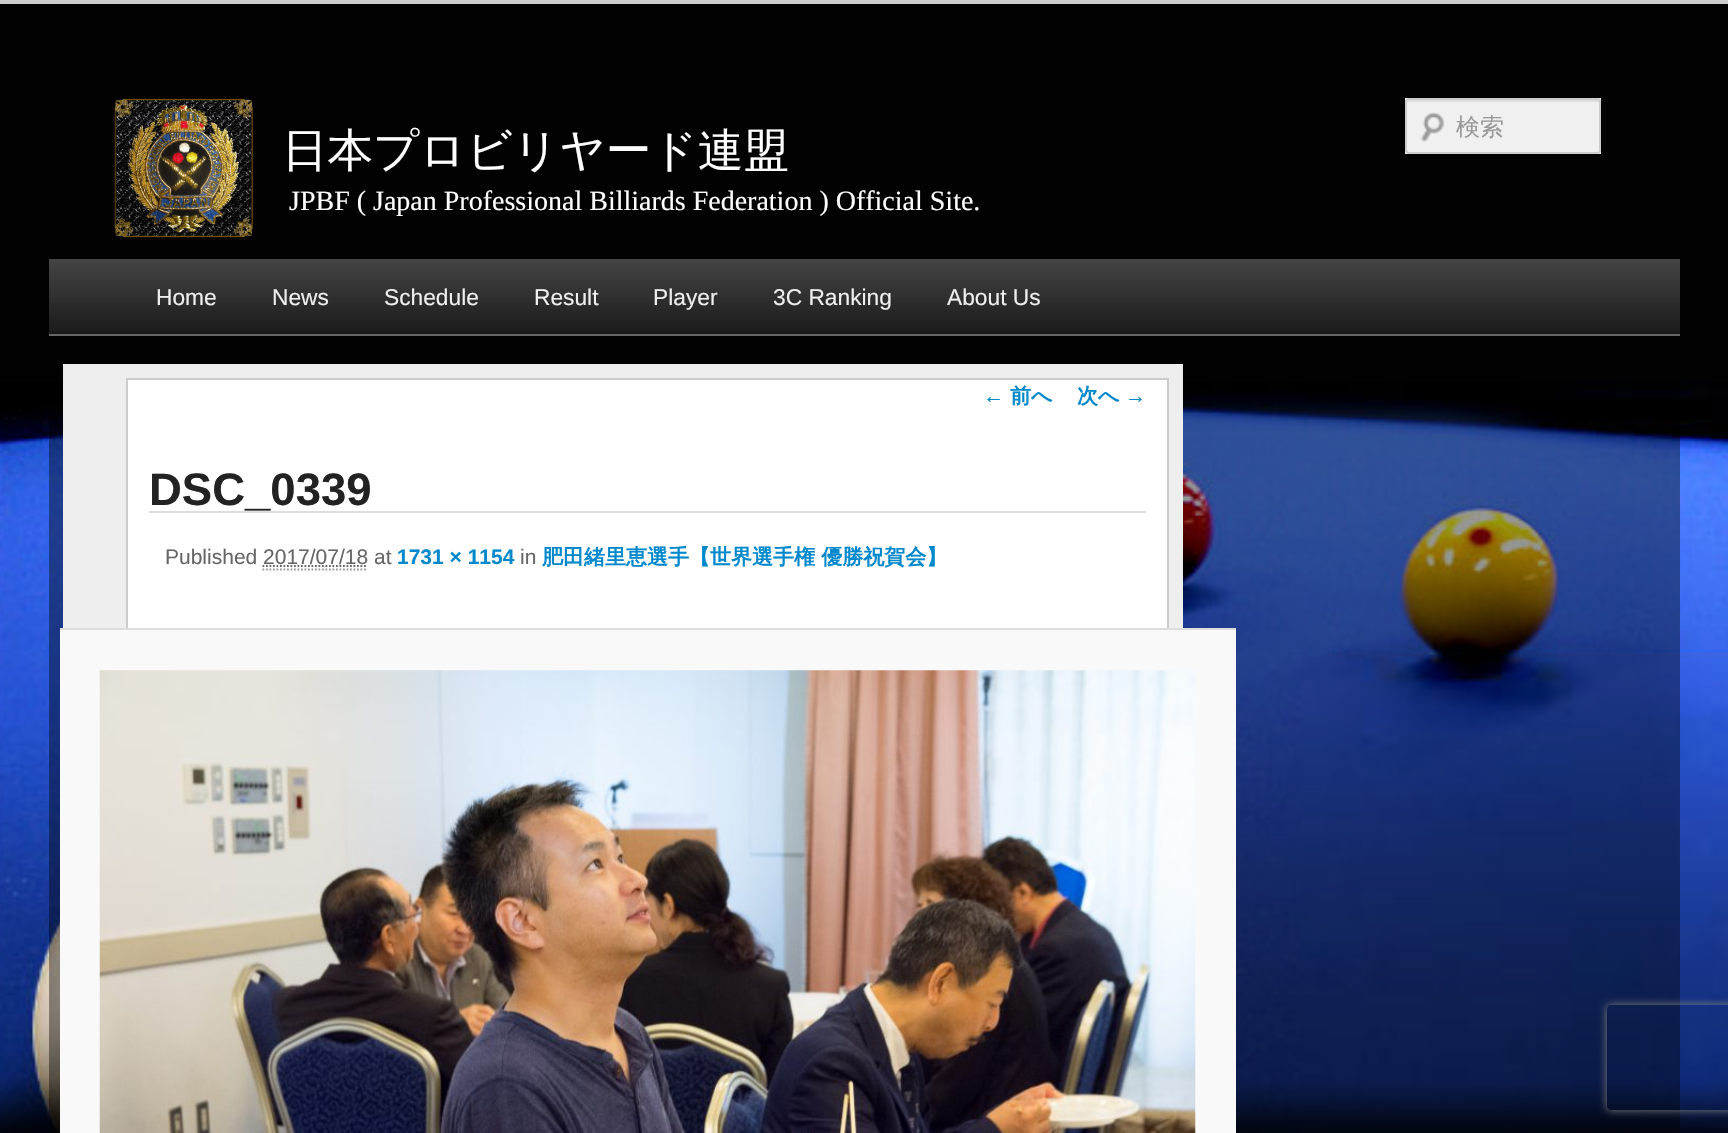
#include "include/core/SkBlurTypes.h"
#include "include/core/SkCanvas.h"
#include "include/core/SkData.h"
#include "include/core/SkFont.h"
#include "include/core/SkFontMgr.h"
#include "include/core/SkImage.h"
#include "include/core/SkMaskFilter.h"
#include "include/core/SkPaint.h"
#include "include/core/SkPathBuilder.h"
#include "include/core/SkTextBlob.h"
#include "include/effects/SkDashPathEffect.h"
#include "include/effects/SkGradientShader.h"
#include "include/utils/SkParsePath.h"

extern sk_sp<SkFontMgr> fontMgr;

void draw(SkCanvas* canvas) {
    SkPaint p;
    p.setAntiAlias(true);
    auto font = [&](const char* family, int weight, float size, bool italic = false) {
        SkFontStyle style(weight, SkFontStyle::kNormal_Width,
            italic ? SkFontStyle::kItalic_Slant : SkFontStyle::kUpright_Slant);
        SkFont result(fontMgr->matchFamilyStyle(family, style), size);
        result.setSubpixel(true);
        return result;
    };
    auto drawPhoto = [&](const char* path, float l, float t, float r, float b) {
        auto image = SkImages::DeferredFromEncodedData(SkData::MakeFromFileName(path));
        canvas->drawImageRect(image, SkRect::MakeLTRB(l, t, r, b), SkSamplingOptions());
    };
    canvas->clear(0xFF020202);
    drawPhoto("media/1.png", 0, 381, 1728, 1133);
    p.setColor(0xFFCCCCCC);
    canvas->drawRect(SkRect::MakeLTRB(0, 0, 1728, 4), p);
    drawPhoto("media/2.png", 113, 98, 254, 238);
    auto font1 = font("WenQuanYi Zen Hei", 500, 45.5f);
    p.setColor(0xFFFFFFFF);
    canvas->drawString("日本プロビリヤード連盟", 282, 166, font1, p);
    auto font2 = font("Liberation Serif", 400, 28);
    canvas->drawString("JPBF ( Japan Professional Billiards Federation ) Official Site.", 289, 210, font2, p);
    p.setColor(0xFFF0F0F0);
    canvas->drawRect(SkRect::MakeLTRB(1405, 98, 1601, 154), p);
    drawPhoto("media/3.png", 1420, 112, 1445, 142);
    p.setColor(0xFFDEDEDE);
    canvas->drawPath(SkPathBuilder().moveTo(1409, 102).lineTo(1598, 102).lineTo(1600, 103).lineTo(1600, 102).cubicTo(1600, 101, 1599, 100, 1598, 100).lineTo(1409, 100).cubicTo(1408, 100, 1407, 101, 1407, 102).lineTo(1407, 103).cubicTo(1407, 102, 1408, 102, 1409, 102).close().detach(), p);
    p.setStyle(SkPaint::kStroke_Style);
    p.setStrokeWidth(2);
    p.setColor(0xFFCCCCCC);
    canvas->drawRoundRect(SkRect::MakeLTRB(1406, 99, 1600, 153), 3, 3, p);
    auto font3 = font("WenQuanYi Zen Hei", 500, 24);
    p.setStyle(SkPaint::kFill_Style);
    p.setColor(0xFF999999);
    canvas->drawString("検索", 1456, 135, font3, p);
    {
        const SkColor colors[] = {0xFF454545, 0xFF1A1A1A};
        const float stops[] = {0, 1};
        const SkPoint ends[] = {{865, 259}, {865, 334}};
        p.setShader(SkGradientShader::MakeLinear(ends, colors, stops, 2, SkTileMode::kClamp));
        p.setAlpha(255);
    }
    canvas->drawRect(SkRect::MakeLTRB(49, 259, 1680, 334), p);
    p.setShader(nullptr);
    p.setColor(0xFF666666);
    canvas->drawRect(SkRect::MakeLTRB(49, 334, 1680, 336), p);
    auto font4 = font("Liberation Sans", 400, 22.75f);
    p.setColor(0xFFEEEEEE);
    {
        const struct { const char* s; float x, y; } items[] = {
            {"Home", 156, 305},
            {"News", 272, 305},
            {"Schedule", 384, 305},
            {"Result", 534, 305},
            {"Player", 653, 305},
            {"3C Ranking", 773, 305},
            {"About Us", 947, 305},
        };
        for (auto [s, x, y] : items) {
            canvas->drawString(s, x, y, font4, p);
        }
    }
    canvas->drawRect(SkRect::MakeLTRB(63, 364, 1183, 628), p);
    p.setColor(0xFFFFFFFF);
    canvas->drawRect(SkRect::MakeLTRB(128, 380, 1167, 628), p);
    p.setStyle(SkPaint::kStroke_Style);
    p.setColor(0xFFCCCCCC);
    canvas->drawRect(SkRect::MakeLTRB(127, 379, 1168, 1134), p);
    auto font5 = font("Liberation Sans", 700, 21);
    p.setStyle(SkPaint::kFill_Style);
    p.setColor(0xFF0088CC);
    canvas->drawString("←", 983, 403, font5, p);
    auto font6 = font("WenQuanYi Zen Hei", 700, 21);
    canvas->drawString("前へ", 1010, 403, font6, p);
    canvas->drawString("次へ", 1077, 403, font6, p);
    canvas->drawString("→", 1125, 403, font5, p);
    p.setColor(0xFFDDDDDD);
    canvas->drawRect(SkRect::MakeLTRB(149, 511, 1146, 513), p);
    auto font7 = font("Liberation Sans", 700, 45.5f);
    p.setColor(0xFF222222);
    canvas->drawString("DSC_0339", 149, 505, font7, p);
    auto font8 = font("Liberation Sans", 400, 21);
    p.setColor(0xFF666666);
    canvas->drawString("Published 2017/07/18 at", 165, 564, font8, p);
    p.setColor(0xFF0088CC);
    canvas->drawString("1731 × 1154", 397, 564, font5, p);
    p.setColor(0xFF666666);
    canvas->drawString("in", 520, 564, font8, p);
    p.setColor(0xFF0088CC);
    canvas->drawString("肥田緒里恵選手【世界選手権 優勝祝賀会】", 542, 564, font6, p);
    p.setStyle(SkPaint::kStroke_Style);
    p.setStrokeWidth(1.8f);
    p.setColor(0xFF666666);
    p.setPathEffect(SkDashPathEffect::Make({{1.75f, 1.75f}}, 0));
    canvas->drawPath(SkPathBuilder().moveTo(262.5f, 566).lineTo(367.5f, 566).detach(), p);
    p.setPathEffect(nullptr);
    p.setColor(0xFF999999);
    p.setPathEffect(SkDashPathEffect::Make({{1.75f, 1.75f}}, 0));
    canvas->drawPath(SkPathBuilder().moveTo(262.5f, 569.5f).lineTo(367.5f, 569.5f).detach(), p);
    p.setPathEffect(nullptr);
    p.setStyle(SkPaint::kFill_Style);
    p.setColor(0xFFF9F9F9);
    canvas->drawRect(SkRect::MakeLTRB(60, 630, 1236, 1133), p);
    p.setColor(0xFFDDDDDD);
    canvas->drawRect(SkRect::MakeLTRB(60, 628, 1236, 630), p);
    drawPhoto("media/4.png", 99, 670, 1196, 1133);
    canvas->save();
    canvas->clipPath(SkPathBuilder(SkPathFillType::kEvenOdd).moveTo(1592, 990).lineTo(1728, 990).lineTo(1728, 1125).lineTo(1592, 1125).close().moveTo(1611, 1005).lineTo(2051, 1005).cubicTo(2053, 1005, 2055, 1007, 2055, 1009).lineTo(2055, 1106).cubicTo(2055, 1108, 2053, 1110, 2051, 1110).lineTo(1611, 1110).cubicTo(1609, 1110, 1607, 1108, 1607, 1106).lineTo(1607, 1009).cubicTo(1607, 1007, 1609, 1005, 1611, 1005).close().detach(), true);
    p.setColor(0xFF808080);
    p.setMaskFilter(SkMaskFilter::MakeBlur(kNormal_SkBlurStyle, 4.5f));
    canvas->drawRoundRect(SkRect::MakeLTRB(1607, 1005, 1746, 1110), 4, 4, p);
    p.setMaskFilter(nullptr);
    canvas->restore();
}
